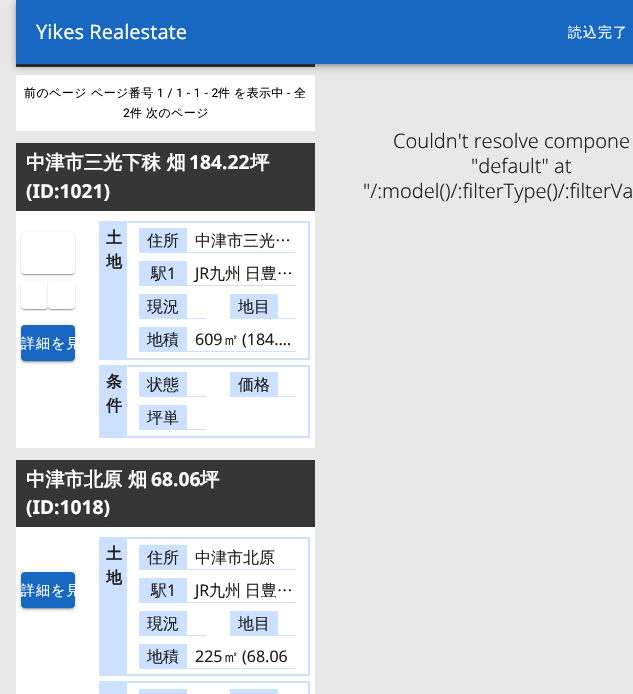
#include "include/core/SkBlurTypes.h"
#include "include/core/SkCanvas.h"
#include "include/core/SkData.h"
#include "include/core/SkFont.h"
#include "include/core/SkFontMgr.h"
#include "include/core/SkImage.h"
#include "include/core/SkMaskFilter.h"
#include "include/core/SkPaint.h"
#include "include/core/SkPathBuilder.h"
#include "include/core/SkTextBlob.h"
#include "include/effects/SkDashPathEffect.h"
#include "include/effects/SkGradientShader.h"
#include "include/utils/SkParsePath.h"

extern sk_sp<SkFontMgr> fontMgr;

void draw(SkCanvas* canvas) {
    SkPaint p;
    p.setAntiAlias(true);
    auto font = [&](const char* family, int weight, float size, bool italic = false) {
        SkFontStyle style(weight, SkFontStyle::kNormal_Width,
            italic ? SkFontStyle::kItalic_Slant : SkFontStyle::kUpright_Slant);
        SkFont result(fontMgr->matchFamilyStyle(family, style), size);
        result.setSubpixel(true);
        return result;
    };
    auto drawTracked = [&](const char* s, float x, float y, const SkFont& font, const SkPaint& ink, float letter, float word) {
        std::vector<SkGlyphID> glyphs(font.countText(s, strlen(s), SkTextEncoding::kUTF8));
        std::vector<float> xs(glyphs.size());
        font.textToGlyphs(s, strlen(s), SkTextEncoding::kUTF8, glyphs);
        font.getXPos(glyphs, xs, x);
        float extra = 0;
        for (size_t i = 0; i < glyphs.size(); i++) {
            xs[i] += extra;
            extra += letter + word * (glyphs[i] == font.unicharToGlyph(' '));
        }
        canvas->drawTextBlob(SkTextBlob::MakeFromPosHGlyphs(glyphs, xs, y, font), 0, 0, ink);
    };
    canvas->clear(0xFFE8E8E8);
    p.setColor(0xFF363636);
    canvas->drawRect(SkRect::MakeLTRB(16, 64, 315, 67), p);
    p.setColor(0xFFFFFFFF);
    canvas->drawRect(SkRect::MakeLTRB(16, 75, 315, 131), p);
    p.setColor(0x1F000000);
    p.setMaskFilter(SkMaskFilter::MakeBlur(kNormal_SkBlurStyle, 5));
    canvas->drawRect(SkRect::MakeLTRB(16, 1, 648, 65), p);
    p.setMaskFilter(nullptr);
    p.setColor(0x24000000);
    p.setMaskFilter(SkMaskFilter::MakeBlur(kNormal_SkBlurStyle, 2.5f));
    canvas->drawRect(SkRect::MakeLTRB(16, 4, 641, 68), p);
    p.setMaskFilter(nullptr);
    p.setColor(0x33000000);
    p.setMaskFilter(SkMaskFilter::MakeBlur(kNormal_SkBlurStyle, 2));
    canvas->drawRect(SkRect::MakeLTRB(17, 3, 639, 65), p);
    p.setMaskFilter(nullptr);
    p.setColor(0xFF1867C0);
    canvas->drawRect(SkRect::MakeLTRB(16, 0, 633, 64), p);
    auto font1 = font("Noto Sans", 400, 20);
    p.setColor(0xFFFFFFFF);
    canvas->drawString("Yikes Realestate", 36, 39, font1, p);
    auto font2 = font("WenQuanYi Zen Hei", 500, 14);
    drawTracked("読込完了", 568, 37, font2, p, 1, 0);
    auto font3 = font("WenQuanYi Zen Hei", 500, 12);
    p.setColor(0xFF000000);
    drawTracked("前のページ", 24, 97, font3, p, 0.4f, 0);
    drawTracked("ページ番号", 91, 97, font3, p, 0.4f, 0);
    auto font4 = font("Roboto", 400, 12);
    drawTracked("1 / 1 - 1 - 2", 157, 97, font4, p, 0.4f, 0);
    drawTracked("件", 218, 97, font3, p, 0.4f, 0);
    drawTracked("を表示中", 234, 97, font3, p, 0.4f, 0);
    drawTracked("-", 287, 97, font4, p, 0.4f, 0);
    drawTracked("全", 294, 97, font3, p, 0.4f, 0);
    drawTracked("2", 123, 117, font4, p, 0.4f, 0);
    drawTracked("件", 130, 117, font3, p, 0.4f, 0);
    drawTracked("次のページ", 146, 117, font3, p, 0.4f, 0);
    p.setColor(0xFF363636);
    canvas->drawRect(SkRect::MakeLTRB(16, 143, 315, 211), p);
    auto font5 = font("WenQuanYi Zen Hei", 700, 19.25f);
    p.setColor(0xFFFFFFFF);
    canvas->drawString("中津市三光下秣 畑", 26, 169, font5, p);
    auto font6 = font("Noto Sans", 700, 19.25f);
    canvas->drawString("184.22", 189, 169, font6, p);
    canvas->drawString("坪", 250, 169, font5, p);
    canvas->drawString("(ID:1021)", 26, 198, font6, p);
    canvas->drawRect(SkRect::MakeLTRB(16, 211, 315, 448), p);
    p.setColor(0x1F000000);
    p.setMaskFilter(SkMaskFilter::MakeBlur(kNormal_SkBlurStyle, 1.5f));
    canvas->drawRoundRect(SkRect::MakeLTRB(21, 233, 75, 275), 4, 4, p);
    p.setMaskFilter(nullptr);
    p.setColor(0x24000000);
    p.setMaskFilter(SkMaskFilter::MakeBlur(kNormal_SkBlurStyle, 0.5f));
    canvas->drawRoundRect(SkRect::MakeLTRB(21, 233, 75, 275), 4, 4, p);
    p.setMaskFilter(nullptr);
    p.setColor(0x33000000);
    p.setMaskFilter(SkMaskFilter::MakeBlur(kNormal_SkBlurStyle, 0.5f));
    canvas->drawRoundRect(SkRect::MakeLTRB(22, 235, 74, 275), 3, 3, p);
    p.setMaskFilter(nullptr);
    p.setColor(0xFFFFFFFF);
    canvas->drawRoundRect(SkRect::MakeLTRB(21, 232, 75, 274), 4, 4, p);
    p.setColor(0x1F000000);
    p.setMaskFilter(SkMaskFilter::MakeBlur(kNormal_SkBlurStyle, 1.5f));
    canvas->drawRoundRect(SkRect::MakeLTRB(21, 283, 48, 310), 4, 4, p);
    p.setMaskFilter(nullptr);
    p.setColor(0x24000000);
    p.setMaskFilter(SkMaskFilter::MakeBlur(kNormal_SkBlurStyle, 0.5f));
    canvas->drawRoundRect(SkRect::MakeLTRB(21, 283, 48, 310), 4, 4, p);
    p.setMaskFilter(nullptr);
    p.setColor(0x33000000);
    p.setMaskFilter(SkMaskFilter::MakeBlur(kNormal_SkBlurStyle, 0.5f));
    canvas->drawRoundRect(SkRect::MakeLTRB(22, 285, 47, 310), 3, 3, p);
    p.setMaskFilter(nullptr);
    p.setColor(0xFFFFFFFF);
    canvas->drawRoundRect(SkRect::MakeLTRB(21, 282, 48, 309), 4, 4, p);
    p.setColor(0x1F000000);
    p.setMaskFilter(SkMaskFilter::MakeBlur(kNormal_SkBlurStyle, 1.5f));
    canvas->drawRoundRect(SkRect::MakeLTRB(48, 283, 75, 310), 4, 4, p);
    p.setMaskFilter(nullptr);
    p.setColor(0x24000000);
    p.setMaskFilter(SkMaskFilter::MakeBlur(kNormal_SkBlurStyle, 0.5f));
    canvas->drawRoundRect(SkRect::MakeLTRB(48, 283, 75, 310), 4, 4, p);
    p.setMaskFilter(nullptr);
    p.setColor(0x33000000);
    p.setMaskFilter(SkMaskFilter::MakeBlur(kNormal_SkBlurStyle, 0.5f));
    canvas->drawRoundRect(SkRect::MakeLTRB(49, 285, 74, 310), 3, 3, p);
    p.setMaskFilter(nullptr);
    p.setColor(0xFFFFFFFF);
    canvas->drawRoundRect(SkRect::MakeLTRB(48, 282, 75, 309), 4, 4, p);
    p.setColor(0x1F000000);
    p.setMaskFilter(SkMaskFilter::MakeBlur(kNormal_SkBlurStyle, 2.5f));
    canvas->drawRoundRect(SkRect::MakeLTRB(21, 326, 75, 362), 4, 4, p);
    p.setMaskFilter(nullptr);
    p.setColor(0x24000000);
    p.setMaskFilter(SkMaskFilter::MakeBlur(kNormal_SkBlurStyle, 1));
    canvas->drawRoundRect(SkRect::MakeLTRB(21, 327, 75, 363), 4, 4, p);
    p.setMaskFilter(nullptr);
    p.setColor(0x33000000);
    p.setMaskFilter(SkMaskFilter::MakeBlur(kNormal_SkBlurStyle, 0.5f));
    canvas->drawRoundRect(SkRect::MakeLTRB(23, 330, 73, 362), 2, 2, p);
    p.setMaskFilter(nullptr);
    p.setColor(0xFF1867C0);
    canvas->drawRoundRect(SkRect::MakeLTRB(21, 325, 75, 361), 4, 4, p);
    p.setColor(0xFFFFFFFF);
    drawTracked("詳細を見", 21, 348, font2, p, 1, 0);
    p.setColor(0xFFCCE0FF);
    canvas->drawRect(SkRect::MakeLTRB(99, 221, 310, 360), p);
    auto font7 = font("WenQuanYi Zen Hei", 700, 16);
    p.setColor(0xFF1E1E1E);
    canvas->drawString("土", 106, 243, font7, p);
    canvas->drawString("地", 106, 267, font7, p);
    p.setColor(0xFFFFFFFF);
    canvas->drawRect(SkRect::MakeLTRB(127, 223, 308, 358), p);
    p.setColor(0xFFCCE0FF);
    canvas->drawRect(SkRect::MakeLTRB(139, 228, 187, 253), p);
    auto font8 = font("WenQuanYi Zen Hei", 500, 16);
    p.setColor(0xFF1E1E1E);
    canvas->drawString("住所", 147, 246, font8, p);
    p.setColor(0xFFCCE0FF);
    canvas->drawRect(SkRect::MakeLTRB(187, 252, 296, 253), p);
    p.setColor(0xFF1E1E1E);
    canvas->drawString("中津市三光…", 195, 246, font8, p);
    p.setColor(0xFFCCE0FF);
    canvas->drawRect(SkRect::MakeLTRB(139, 261, 187, 286), p);
    p.setColor(0xFF1E1E1E);
    canvas->drawString("駅", 151, 279, font8, p);
    auto font9 = font("Noto Sans", 400, 16);
    canvas->drawString("1", 167, 279, font9, p);
    p.setColor(0xFFCCE0FF);
    canvas->drawRect(SkRect::MakeLTRB(187, 285, 296, 286), p);
    p.setColor(0xFF1E1E1E);
    canvas->drawString("JR", 195, 279, font9, p);
    drawTracked("九州 日豊…", 209, 279, font8, p, 0, -1);
    p.setColor(0xFFCCE0FF);
    canvas->drawRect(SkRect::MakeLTRB(139, 294, 187, 319), p);
    p.setColor(0xFF1E1E1E);
    canvas->drawString("現況", 147, 312, font8, p);
    p.setColor(0xFFCCE0FF);
    canvas->drawRect(SkRect::MakeLTRB(187, 318, 206, 319), p);
    canvas->drawRect(SkRect::MakeLTRB(230, 294, 278, 319), p);
    p.setColor(0xFF1E1E1E);
    canvas->drawString("地目", 238, 312, font8, p);
    p.setColor(0xFFCCE0FF);
    canvas->drawRect(SkRect::MakeLTRB(278, 318, 296, 319), p);
    canvas->drawRect(SkRect::MakeLTRB(139, 327, 187, 352), p);
    p.setColor(0xFF1E1E1E);
    canvas->drawString("地積", 147, 345, font8, p);
    p.setColor(0xFFCCE0FF);
    canvas->drawRect(SkRect::MakeLTRB(187, 351, 296, 352), p);
    p.setColor(0xFF1E1E1E);
    canvas->drawString("609", 195, 345, font9, p);
    canvas->drawString("㎡", 223, 345, font8, p);
    canvas->drawString("(184.…", 242, 345, font9, p);
    p.setColor(0xFFCCE0FF);
    canvas->drawRect(SkRect::MakeLTRB(99, 365, 310, 438), p);
    p.setColor(0xFF1E1E1E);
    canvas->drawString("条", 106, 387, font7, p);
    canvas->drawString("件", 106, 411, font7, p);
    p.setColor(0xFFFFFFFF);
    canvas->drawRect(SkRect::MakeLTRB(127, 367, 308, 436), p);
    p.setColor(0xFFCCE0FF);
    canvas->drawRect(SkRect::MakeLTRB(139, 372, 187, 397), p);
    p.setColor(0xFF1E1E1E);
    canvas->drawString("状態", 147, 390, font8, p);
    p.setColor(0xFFCCE0FF);
    canvas->drawRect(SkRect::MakeLTRB(187, 396, 206, 397), p);
    canvas->drawRect(SkRect::MakeLTRB(230, 372, 278, 397), p);
    p.setColor(0xFF1E1E1E);
    canvas->drawString("価格", 238, 390, font8, p);
    p.setColor(0xFFCCE0FF);
    canvas->drawRect(SkRect::MakeLTRB(278, 396, 296, 397), p);
    canvas->drawRect(SkRect::MakeLTRB(139, 405, 187, 430), p);
    p.setColor(0xFF1E1E1E);
    canvas->drawString("坪単", 147, 423, font8, p);
    p.setColor(0xFFCCE0FF);
    canvas->drawRect(SkRect::MakeLTRB(187, 429, 206, 430), p);
    p.setColor(0xFF363636);
    canvas->drawRect(SkRect::MakeLTRB(16, 460, 315, 527), p);
    p.setColor(0xFFFFFFFF);
    canvas->drawString("中津市北原 畑", 26, 486, font5, p);
    canvas->drawString("68.06", 151, 486, font6, p);
    canvas->drawString("坪", 200, 486, font5, p);
    canvas->drawString("(ID:1018)", 26, 514, font6, p);
    canvas->drawRect(SkRect::MakeLTRB(16, 527, 315, 694), p);
    p.setColor(0x1F000000);
    p.setMaskFilter(SkMaskFilter::MakeBlur(kNormal_SkBlurStyle, 2.5f));
    canvas->drawRoundRect(SkRect::MakeLTRB(21, 573, 75, 609), 4, 4, p);
    p.setMaskFilter(nullptr);
    p.setColor(0x24000000);
    p.setMaskFilter(SkMaskFilter::MakeBlur(kNormal_SkBlurStyle, 1));
    canvas->drawRoundRect(SkRect::MakeLTRB(21, 574, 75, 610), 4, 4, p);
    p.setMaskFilter(nullptr);
    p.setColor(0x33000000);
    p.setMaskFilter(SkMaskFilter::MakeBlur(kNormal_SkBlurStyle, 0.5f));
    canvas->drawRoundRect(SkRect::MakeLTRB(23, 577, 73, 609), 2, 2, p);
    p.setMaskFilter(nullptr);
    p.setColor(0xFF1867C0);
    canvas->drawRoundRect(SkRect::MakeLTRB(21, 572, 75, 608), 4, 4, p);
    p.setColor(0xFFFFFFFF);
    drawTracked("詳細を見", 21, 595, font2, p, 1, 0);
    p.setColor(0xFFCCE0FF);
    canvas->drawRect(SkRect::MakeLTRB(99, 537, 310, 676), p);
    p.setColor(0xFF1E1E1E);
    canvas->drawString("土", 106, 559, font7, p);
    canvas->drawString("地", 106, 583, font7, p);
    p.setColor(0xFFFFFFFF);
    canvas->drawRect(SkRect::MakeLTRB(127, 539, 308, 674), p);
    p.setColor(0xFFCCE0FF);
    canvas->drawRect(SkRect::MakeLTRB(139, 545, 187, 570), p);
    p.setColor(0xFF1E1E1E);
    canvas->drawString("住所", 147, 563, font8, p);
    p.setColor(0xFFCCE0FF);
    canvas->drawRect(SkRect::MakeLTRB(187, 569, 296, 570), p);
    p.setColor(0xFF1E1E1E);
    canvas->drawString("中津市北原", 195, 563, font8, p);
    p.setColor(0xFFCCE0FF);
    canvas->drawRect(SkRect::MakeLTRB(139, 578, 187, 603), p);
    p.setColor(0xFF1E1E1E);
    canvas->drawString("駅", 151, 596, font8, p);
    canvas->drawString("1", 167, 596, font9, p);
    p.setColor(0xFFCCE0FF);
    canvas->drawRect(SkRect::MakeLTRB(187, 602, 296, 603), p);
    p.setColor(0xFF1E1E1E);
    canvas->drawString("JR", 195, 596, font9, p);
    drawTracked("九州 日豊…", 209, 596, font8, p, 0, -1);
    p.setColor(0xFFCCE0FF);
    canvas->drawRect(SkRect::MakeLTRB(139, 611, 187, 636), p);
    p.setColor(0xFF1E1E1E);
    canvas->drawString("現況", 147, 629, font8, p);
    p.setColor(0xFFCCE0FF);
    canvas->drawRect(SkRect::MakeLTRB(187, 635, 206, 636), p);
    canvas->drawRect(SkRect::MakeLTRB(230, 611, 278, 636), p);
    p.setColor(0xFF1E1E1E);
    canvas->drawString("地目", 238, 629, font8, p);
    p.setColor(0xFFCCE0FF);
    canvas->drawRect(SkRect::MakeLTRB(278, 635, 296, 636), p);
    canvas->drawRect(SkRect::MakeLTRB(139, 644, 187, 669), p);
    p.setColor(0xFF1E1E1E);
    canvas->drawString("地積", 147, 662, font8, p);
    p.setColor(0xFFCCE0FF);
    canvas->drawRect(SkRect::MakeLTRB(187, 668, 296, 669), p);
    p.setColor(0xFF1E1E1E);
    canvas->drawString("225", 195, 662, font9, p);
    canvas->drawString("㎡", 223, 662, font8, p);
    canvas->drawString("(68.06", 242, 662, font9, p);
    {
        const struct { float l, t, r, b; SkColor color; } items[] = {
            {99, 681, 310, 694, 0xFFCCE0FF},
            {127, 683, 308, 694, 0xFFFFFFFF},
            {139, 689, 187, 694, 0xFFCCE0FF},
            {230, 689, 278, 694, 0xFFCCE0FF},
        };
        for (auto [l, t, r, b, color] : items) {
            p.setColor(color);
            canvas->drawRect(SkRect::MakeLTRB(l, t, r, b), p);
        }
    }
    auto font10 = font("Noto Sans", 300, 20);
    p.setColor(0xFF1E1E1E);
    {
        const struct { const char* s; float x, y; } items[] = {
            {"Couldn't resolve compone", 393, 148},
            {"\"default\" at", 471, 173},
            {"\"/:model()/:filterType()/:filterVa", 363, 198},
        };
        for (auto [s, x, y] : items) {
            canvas->drawString(s, x, y, font10, p);
        }
    }
}
